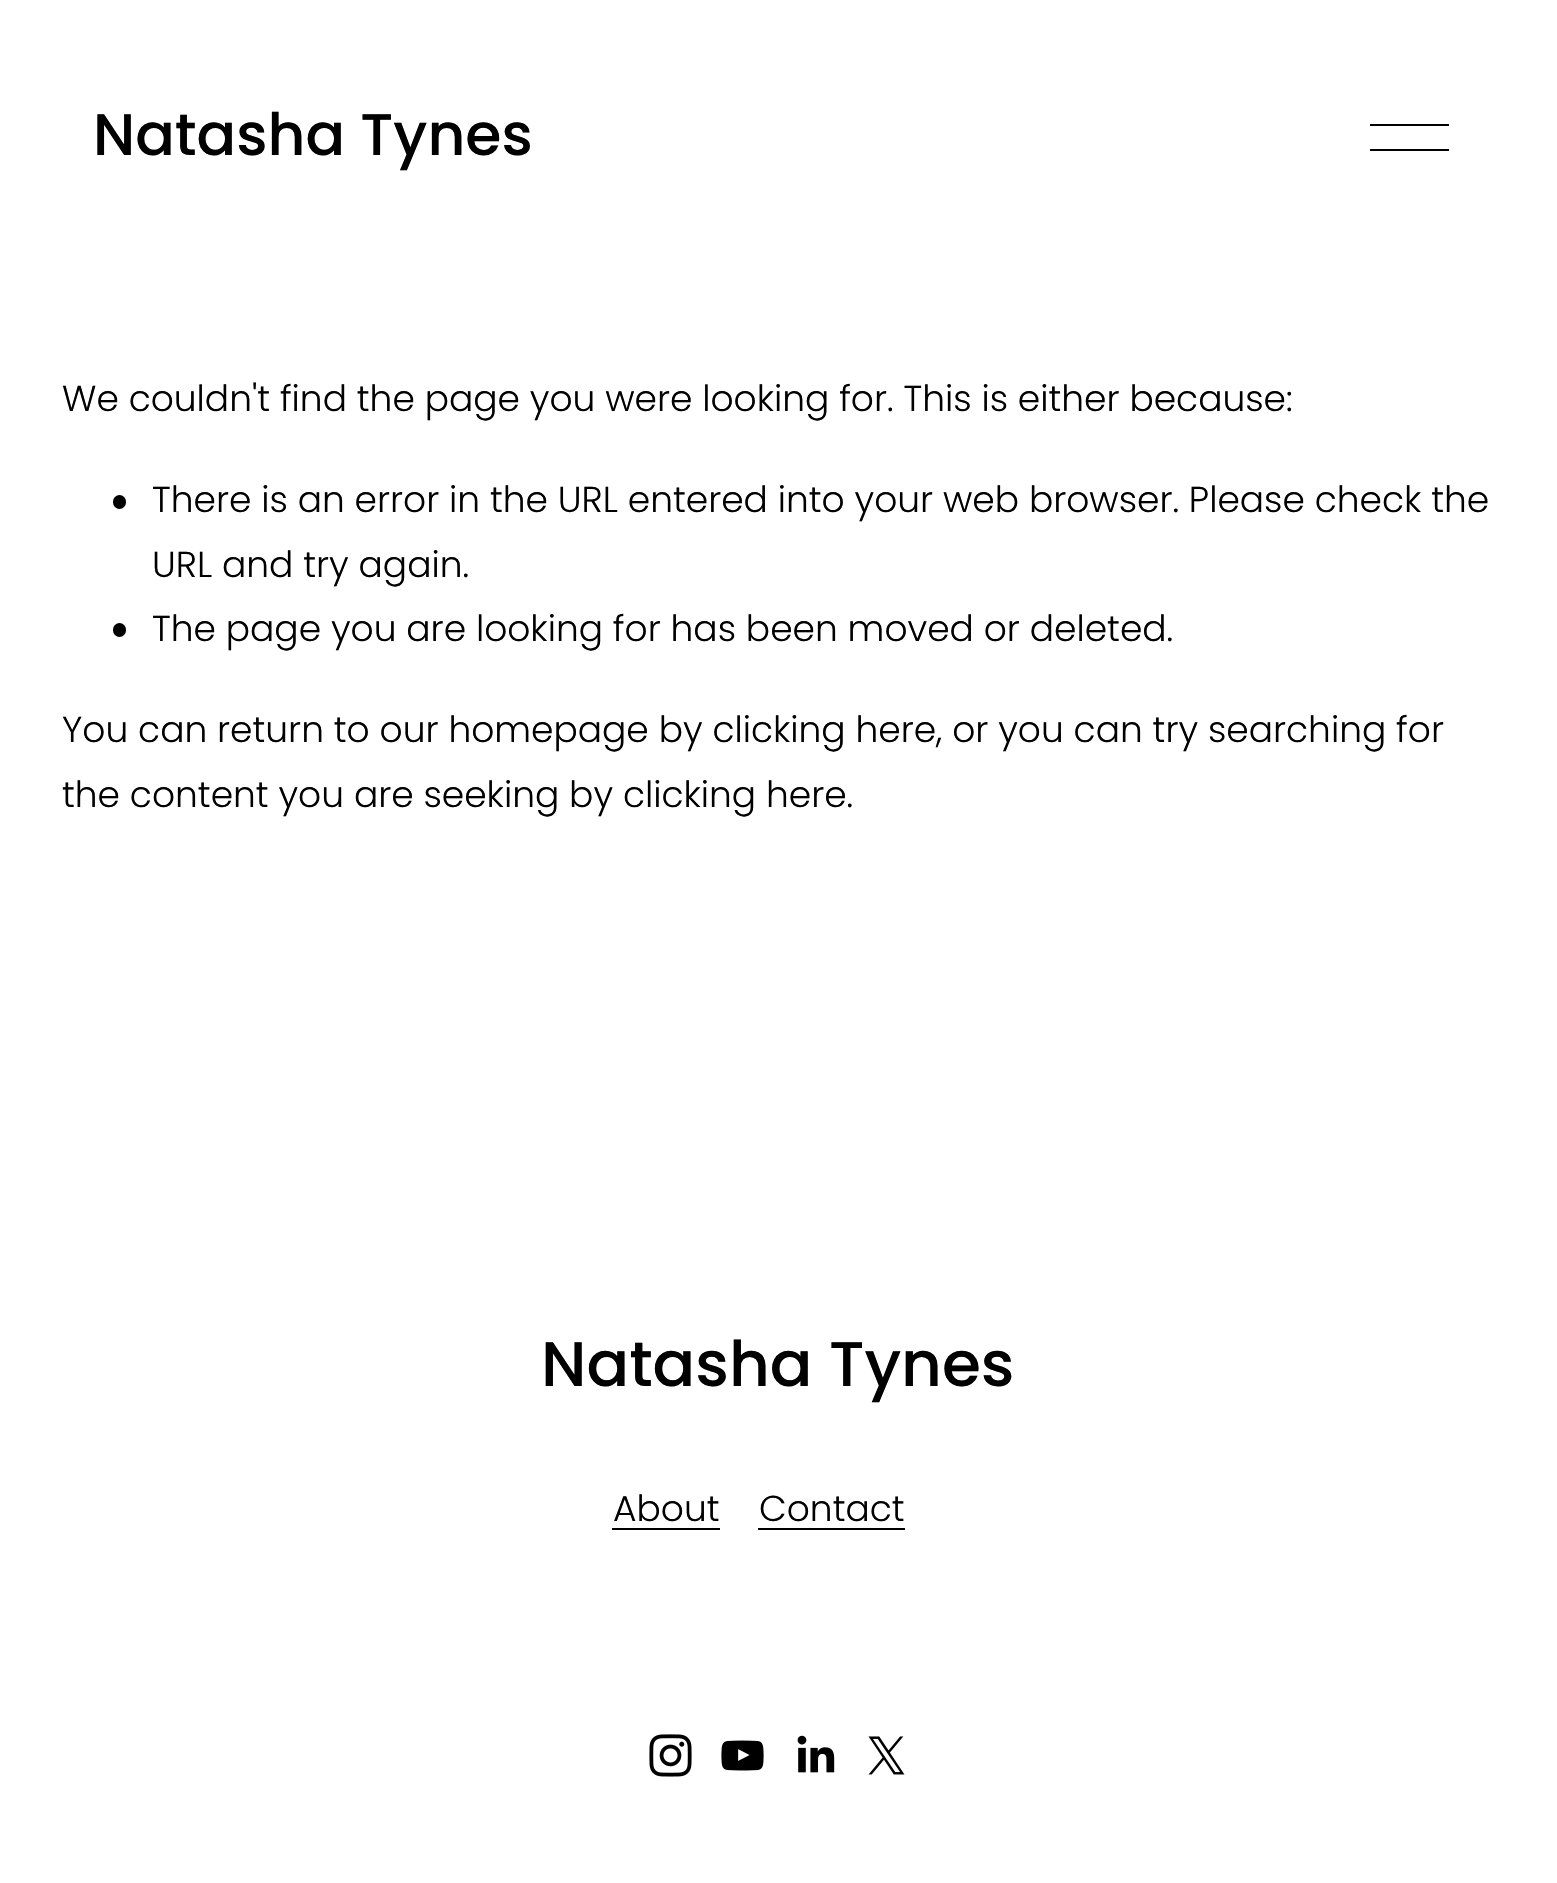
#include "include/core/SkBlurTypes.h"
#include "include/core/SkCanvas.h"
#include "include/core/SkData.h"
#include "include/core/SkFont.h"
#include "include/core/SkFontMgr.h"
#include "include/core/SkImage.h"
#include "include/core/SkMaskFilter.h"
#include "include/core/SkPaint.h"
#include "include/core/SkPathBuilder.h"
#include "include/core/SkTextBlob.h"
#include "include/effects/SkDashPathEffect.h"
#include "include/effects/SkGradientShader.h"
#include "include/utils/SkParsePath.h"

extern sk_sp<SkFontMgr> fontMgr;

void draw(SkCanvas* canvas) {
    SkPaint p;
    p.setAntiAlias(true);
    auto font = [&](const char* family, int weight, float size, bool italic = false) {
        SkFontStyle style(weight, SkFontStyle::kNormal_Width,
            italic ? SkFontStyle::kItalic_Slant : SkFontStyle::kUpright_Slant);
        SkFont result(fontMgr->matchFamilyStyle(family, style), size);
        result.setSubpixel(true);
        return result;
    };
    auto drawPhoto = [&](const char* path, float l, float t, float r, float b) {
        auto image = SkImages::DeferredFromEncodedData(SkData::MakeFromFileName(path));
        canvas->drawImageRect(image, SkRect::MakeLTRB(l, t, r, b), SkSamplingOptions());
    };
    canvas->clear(0xFFFFFFFF);
    auto font1 = font("Poppins", 500, 58.5f);
    p.setColor(0xFF000000);
    canvas->drawString("Natasha Tynes", 93, 155, font1, p);
    canvas->drawRect(SkRect::MakeLTRB(1370, 124, 1449, 126), p);
    canvas->drawRect(SkRect::MakeLTRB(1370, 149, 1449, 151), p);
    auto font2 = font("Poppins", 300, 36);
    canvas->drawString("We couldn't find the page you were looking for. This is either because:", 62, 411, font2, p);
    canvas->drawRoundRect(SkRect::MakeLTRB(113, 495, 126, 509), 6.5f, 6.5f, p);
    canvas->drawString("There is an error in the URL entered into your web browser. Please check the", 152, 512, font2, p);
    canvas->drawString("URL and try again.", 152, 577, font2, p);
    canvas->drawRoundRect(SkRect::MakeLTRB(113, 623, 126, 637), 6.5f, 6.5f, p);
    {
        const struct { const char* s; float x, y; } items[] = {
            {"The page you are looking for has been moved or deleted.", 152, 641},
            {"You can return to our homepage by clicking here, or you can try searching for", 62, 742},
            {"the content you are seeking by clicking here.", 62, 807},
        };
        for (auto [s, x, y] : items) {
            canvas->drawString(s, x, y, font2, p);
        }
    }
    auto font3 = font("Poppins", 500, 63);
    canvas->drawString("Natasha Tynes", 541, 1386, font3, p);
    canvas->drawString("About", 613, 1521, font2, p);
    canvas->drawRect(SkRect::MakeLTRB(612, 1528, 720, 1530), p);
    canvas->drawString("Contact", 759, 1521, font2, p);
    canvas->drawRect(SkRect::MakeLTRB(758, 1528, 905, 1530), p);
    drawPhoto("media/1.png", 649, 1734, 692, 1777);
    drawPhoto("media/2.png", 721, 1740, 764, 1771);
    drawPhoto("media/3.png", 797, 1735, 835, 1773);
    drawPhoto("media/4.png", 868, 1736, 905, 1775);
}
